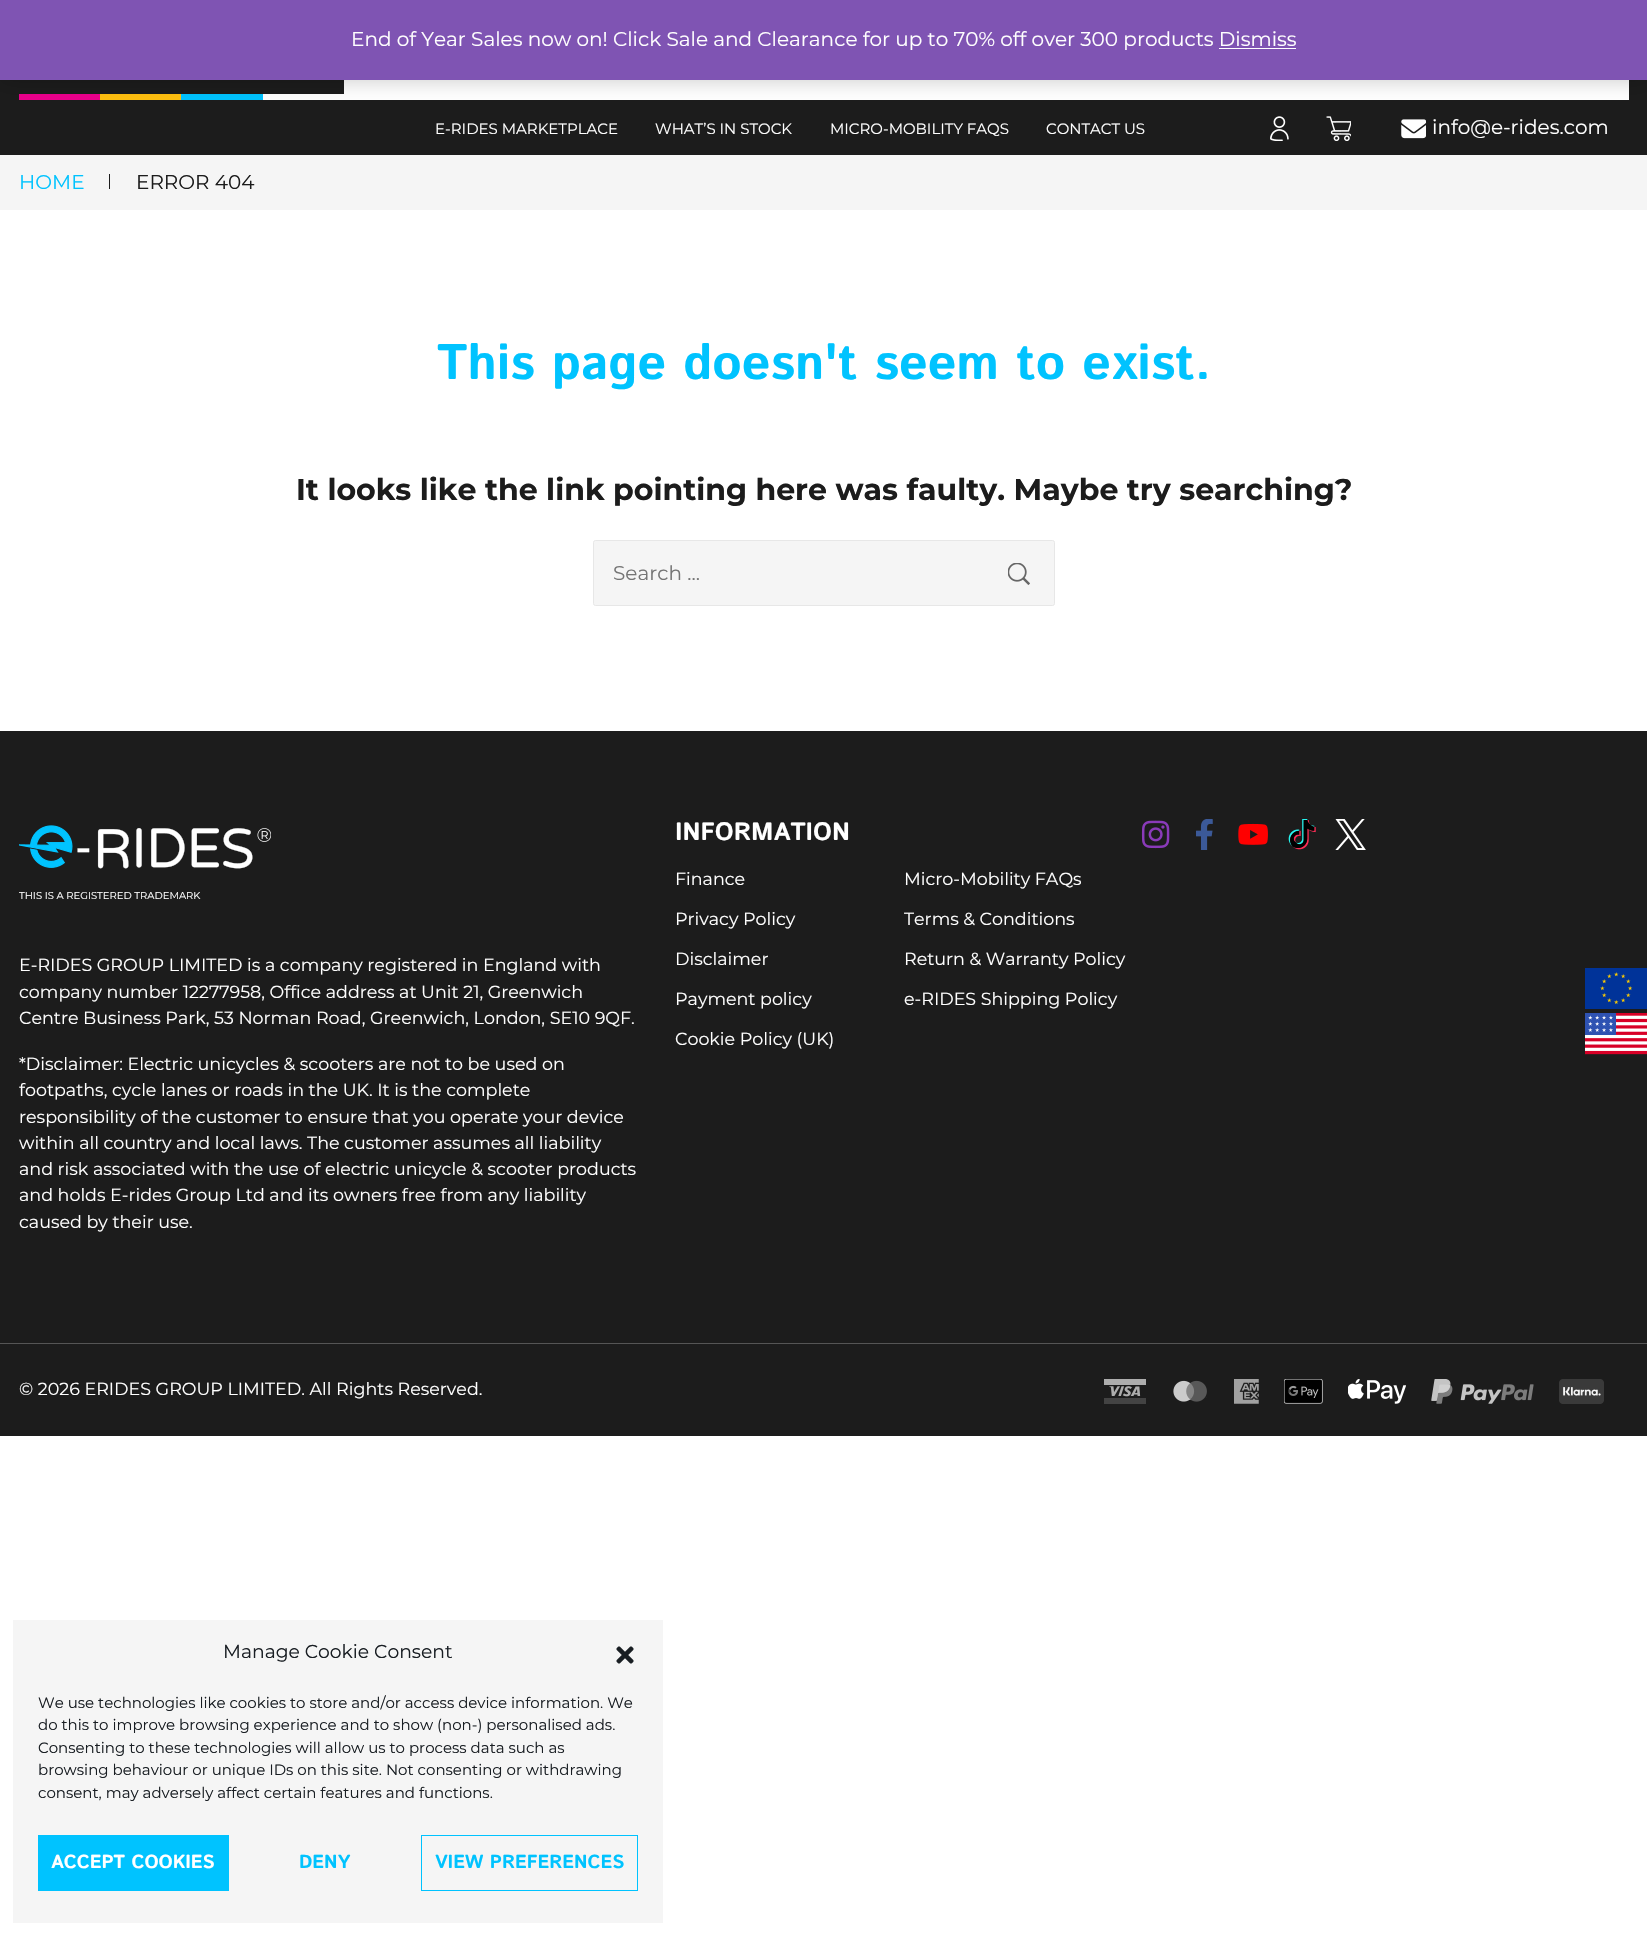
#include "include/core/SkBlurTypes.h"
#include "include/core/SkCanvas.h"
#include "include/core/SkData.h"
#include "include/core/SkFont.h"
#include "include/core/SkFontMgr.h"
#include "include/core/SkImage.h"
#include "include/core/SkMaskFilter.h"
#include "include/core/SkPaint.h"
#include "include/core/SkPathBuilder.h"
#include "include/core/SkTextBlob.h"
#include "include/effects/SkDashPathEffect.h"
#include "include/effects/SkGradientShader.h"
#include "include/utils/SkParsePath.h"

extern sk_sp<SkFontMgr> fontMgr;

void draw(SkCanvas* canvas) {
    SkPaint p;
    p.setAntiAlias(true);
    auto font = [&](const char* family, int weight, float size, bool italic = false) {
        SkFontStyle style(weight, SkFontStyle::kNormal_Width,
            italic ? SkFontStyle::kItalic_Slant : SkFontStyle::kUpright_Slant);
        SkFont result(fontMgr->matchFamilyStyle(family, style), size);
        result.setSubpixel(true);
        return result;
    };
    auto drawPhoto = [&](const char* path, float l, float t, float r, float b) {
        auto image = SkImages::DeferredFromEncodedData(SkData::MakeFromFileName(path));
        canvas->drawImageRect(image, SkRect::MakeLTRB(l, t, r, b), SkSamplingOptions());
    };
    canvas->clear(0xFFFFFFFF);
    {
        const struct { float l, t, r, b; SkColor color; } items[] = {
            {0, 80, 1647, 155, 0xFF1C1C1C},
            {19, 94, 100, 100, 0xFFEC008C},
            {100, 94, 181, 100, 0xFFFFBF0F},
            {181, 94, 263, 100, 0xFF00C3FF},
            {263, 94, 344, 100, 0xFFFFFFFF},
            {344, 80, 1629, 100, 0xFFFFFFFF},
        };
        for (auto [l, t, r, b, color] : items) {
            p.setColor(color);
            canvas->drawRect(SkRect::MakeLTRB(l, t, r, b), p);
        }
    }
    p.setColor(0x33000000);
    p.setMaskFilter(SkMaskFilter::MakeBlur(kNormal_SkBlurStyle, 10));
    canvas->drawRect(SkRect::MakeLTRB(0, 1, 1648, 81), p);
    p.setMaskFilter(nullptr);
    p.setColor(0xFF7F54B3);
    canvas->drawRect(SkRect::MakeLTRB(0, 0, 1647, 80), p);
    auto font1 = font("Montserrat", 400, 20);
    p.setColor(0xFFFFFFFF);
    canvas->drawString("End of Year Sales now on! Click Sale and Clearance for up to 70% off over 300 products Dismiss", 351, 46, font1, p);
    canvas->drawRect(SkRect::MakeLTRB(1219, 48, 1296, 49), p);
    auto font2 = font("Montserrat", 400, 15);
    {
        const struct { const char* s; float x, y; } items[] = {
            {"E-RIDES MARKETPLACE", 435, 134},
            {"WHAT’S IN STOCK", 655, 134},
            {"MICRO-MOBILITY FAQS", 830, 134},
            {"CONTACT US", 1046, 134},
        };
        for (auto [s, x, y] : items) {
            canvas->drawString(s, x, y, font2, p);
        }
    }
    drawPhoto("media/1.png", 1270, 116, 1289, 141);
    drawPhoto("media/2.png", 1326, 116, 1351, 141);
    drawPhoto("media/3.png", 1401, 119, 1426, 139);
    canvas->drawString("info@e-rides.com", 1432, 134, font1, p);
    p.setColor(0xFFF5F5F5);
    canvas->drawRect(SkRect::MakeLTRB(0, 155, 1647, 210), p);
    p.setColor(0xFF00C3FF);
    canvas->drawString("HOME", 19, 189, font1, p);
    p.setColor(0xFF1C1C1C);
    canvas->drawRect(SkRect::MakeLTRB(109, 174, 110, 189), p);
    canvas->drawString("ERROR 404", 136, 189, font1, p);
    auto font3 = font("Istok Web", 700, 50);
    p.setColor(0xFF00C3FF);
    canvas->drawString("This page doesn't seem to exist.", 437, 379, font3, p);
    auto font4 = font("Montserrat", 700, 30);
    p.setColor(0xFF1C1C1C);
    canvas->drawString("It looks like the link pointing here was faulty. Maybe try searching?", 296, 500, font4, p);
    p.setColor(0xFFF5F5F5);
    canvas->drawRoundRect(SkRect::MakeLTRB(593.5f, 540.5f, 1054.5f, 605.5f), 2, 2, p);
    p.setStyle(SkPaint::kStroke_Style);
    p.setStrokeWidth(1);
    p.setColor(0xFFE7E7E7);
    canvas->drawRoundRect(SkRect::MakeLTRB(593.5f, 540.5f, 1054.5f, 605.5f), 2, 2, p);
    p.setStyle(SkPaint::kFill_Style);
    p.setColor(0xFF757575);
    canvas->drawString("Search ...", 613, 580, font1, p);
    drawPhoto("media/4.png", 1008, 563, 1030, 585);
    p.setColor(0xFF1C1C1C);
    canvas->drawRect(SkRect::MakeLTRB(0, 731, 1647, 1343), p);
    p.setColor(0xFF555555);
    canvas->drawRect(SkRect::MakeLTRB(0, 1343, 1647, 1344), p);
    drawPhoto("media/5.png", 19, 825, 271, 869);
    auto font5 = font("Montserrat", 400, 10);
    p.setColor(0xFFFFFFFF);
    canvas->drawString("THIS IS A REGISTERED TRADEMARK", 19, 899, font5, p);
    auto font6 = font("Montserrat", 400, 17.5f);
    {
        const struct { const char* s; float x, y; } items[] = {
            {"E-RIDES GROUP LIMITED is a company registered in England with", 19, 971},
            {"company number 12277958, Office address at Unit 21, Greenwich", 19, 998},
            {"Centre Business Park, 53 Norman Road, Greenwich, London, SE10 9QF.", 19, 1024},
            {"*Disclaimer: Electric unicycles & scooters are not to be used on", 19, 1070},
            {"footpaths, cycle lanes or roads in the UK. It is the complete", 19, 1096},
            {"responsibility of the customer to ensure that you operate your device", 19, 1123},
            {"within all country and local laws. The customer assumes all liability", 19, 1149},
            {"and risk associated with the use of electric unicycle & scooter products", 19, 1175},
            {"and holds E-rides Group Ltd and its owners free from any liability", 19, 1201},
            {"caused by their use.", 19, 1228},
        };
        for (auto [s, x, y] : items) {
            canvas->drawString(s, x, y, font6, p);
        }
    }
    auto font7 = font("Istok Web", 700, 25);
    canvas->drawString("INFORMATION", 675, 840, font7, p);
    {
        const struct { const char* s; float x, y; } items[] = {
            {"Finance", 675, 885},
            {"Micro-Mobility FAQs", 904, 885},
            {"Privacy Policy", 675, 925},
            {"Terms & Conditions", 904, 925},
            {"Disclaimer", 675, 965},
            {"Return & Warranty Policy", 904, 965},
            {"Payment policy", 675, 1005},
            {"e-RIDES Shipping Policy", 904, 1005},
            {"Cookie Policy (UK)", 675, 1045},
        };
        for (auto [s, x, y] : items) {
            canvas->drawString(s, x, y, font6, p);
        }
    }
    drawPhoto("media/6.png", 1141, 820, 1170, 849);
    drawPhoto("media/7.png", 1196, 819, 1213, 850);
    drawPhoto("media/8.png", 1238, 823, 1268, 845);
    drawPhoto("media/9.png", 1288, 819, 1316, 850);
    drawPhoto("media/10.png", 1335, 819, 1366, 850);
    p.setColor(0xFF1C1C1C);
    canvas->drawRect(SkRect::MakeLTRB(0, 1344, 1647, 1436), p);
    p.setColor(0xFFFFFFFF);
    canvas->drawString("© 2026 ERIDES GROUP LIMITED. All Rights Reserved.", 19, 1395, font6, p);
    drawPhoto("media/11.png", 1104, 1379, 1146, 1404);
    drawPhoto("media/12.png", 1173, 1380, 1207, 1402);
    drawPhoto("media/13.png", 1234, 1379, 1259, 1404);
    drawPhoto("media/14.png", 1284, 1379, 1323, 1404);
    drawPhoto("media/15.png", 1348, 1379, 1406, 1404);
    drawPhoto("media/16.png", 1431, 1379, 1534, 1404);
    drawPhoto("media/17.png", 1559, 1379, 1604, 1404);
    drawPhoto("media/18.png", 1585, 968, 1647, 1009);
    drawPhoto("media/19.png", 1585, 1013, 1647, 1055);
    p.setColor(0xFFF5F5F5);
    canvas->drawRect(SkRect::MakeLTRB(13, 1620, 663, 1923), p);
    auto font8 = font("Montserrat", 400, 18.75f);
    p.setColor(0xFF191E23);
    canvas->drawString("Manage Cookie Consent", 223, 1658, font8, p);
    drawPhoto("media/20.png", 616, 1646, 634, 1664);
    {
        const struct { const char* s; float x, y; } items[] = {
            {"We use technologies like cookies to store and/or access device information. We", 38, 1708},
            {"do this to improve browsing experience and to show (non-) personalised ads.", 38, 1730},
            {"Consenting to these technologies will allow us to process data such as", 38, 1753},
            {"browsing behaviour or unique IDs on this site. Not consenting or withdrawing", 38, 1775},
            {"consent, may adversely affect certain features and functions.", 38, 1798},
        };
        for (auto [s, x, y] : items) {
            canvas->drawString(s, x, y, font2, p);
        }
    }
    p.setColor(0xFF00C3FF);
    canvas->drawRect(SkRect::MakeLTRB(38, 1835, 229, 1891), p);
    auto font9 = font("Istok Web", 700, 18.75f);
    p.setColor(0xFFFFFFFF);
    canvas->drawString("ACCEPT COOKIES", 51, 1868, font9, p);
    p.setColor(0xFF00C3FF);
    canvas->drawString("DENY", 299, 1868, font9, p);
    p.setStyle(SkPaint::kStroke_Style);
    canvas->drawRect(SkRect::MakeLTRB(421.5f, 1835.5f, 637.5f, 1890.5f), p);
    p.setStyle(SkPaint::kFill_Style);
    canvas->drawString("VIEW PREFERENCES", 435, 1868, font9, p);
}
